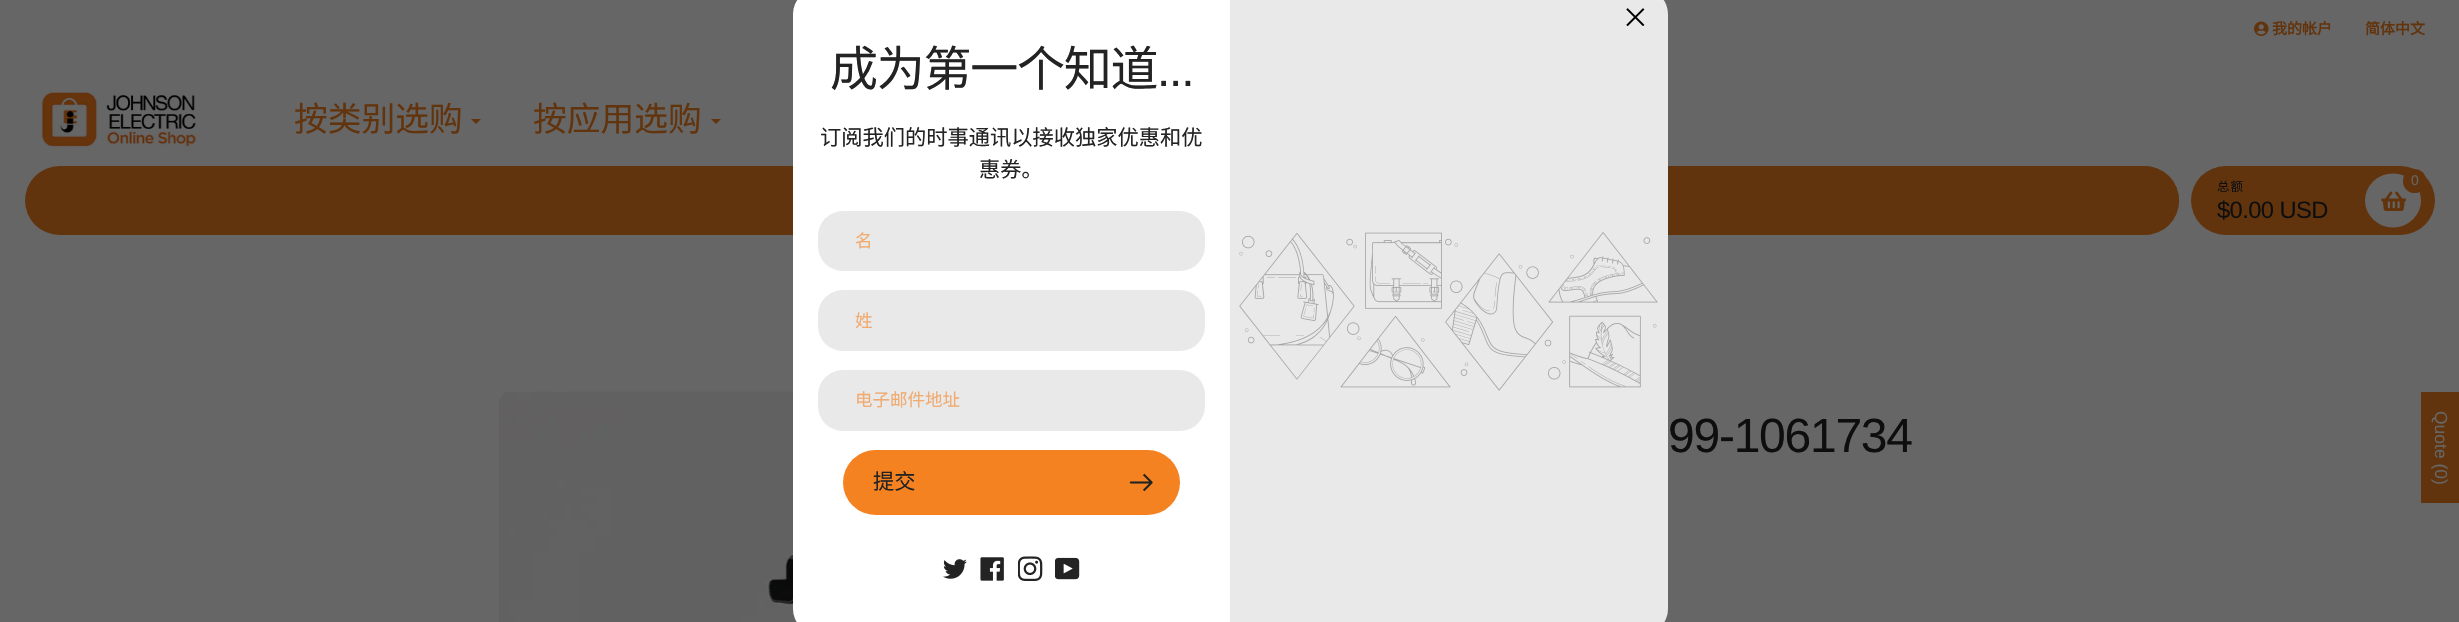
#include "include/core/SkBlurTypes.h"
#include "include/core/SkCanvas.h"
#include "include/core/SkData.h"
#include "include/core/SkFont.h"
#include "include/core/SkFontMgr.h"
#include "include/core/SkImage.h"
#include "include/core/SkMaskFilter.h"
#include "include/core/SkPaint.h"
#include "include/core/SkPathBuilder.h"
#include "include/core/SkTextBlob.h"
#include "include/effects/SkDashPathEffect.h"
#include "include/effects/SkGradientShader.h"
#include "include/utils/SkParsePath.h"

extern sk_sp<SkFontMgr> fontMgr;

void draw(SkCanvas* canvas) {
    SkPaint p;
    p.setAntiAlias(true);
    auto font = [&](const char* family, int weight, float size, bool italic = false) {
        SkFontStyle style(weight, SkFontStyle::kNormal_Width,
            italic ? SkFontStyle::kItalic_Slant : SkFontStyle::kUpright_Slant);
        SkFont result(fontMgr->matchFamilyStyle(family, style), size);
        result.setSubpixel(true);
        return result;
    };
    auto drawTracked = [&](const char* s, float x, float y, const SkFont& font, const SkPaint& ink, float letter, float word) {
        std::vector<SkGlyphID> glyphs(font.countText(s, strlen(s), SkTextEncoding::kUTF8));
        std::vector<float> xs(glyphs.size());
        font.textToGlyphs(s, strlen(s), SkTextEncoding::kUTF8, glyphs);
        font.getXPos(glyphs, xs, x);
        float extra = 0;
        for (size_t i = 0; i < glyphs.size(); i++) {
            xs[i] += extra;
            extra += letter + word * (glyphs[i] == font.unicharToGlyph(' '));
        }
        canvas->drawTextBlob(SkTextBlob::MakeFromPosHGlyphs(glyphs, xs, y, font), 0, 0, ink);
    };
    auto drawPhoto = [&](const char* path, float l, float t, float r, float b) {
        auto image = SkImages::DeferredFromEncodedData(SkData::MakeFromFileName(path));
        canvas->drawImageRect(image, SkRect::MakeLTRB(l, t, r, b), SkSamplingOptions());
    };
    canvas->clear(0xFF666666);
    drawPhoto("media/1.png", 2254, 21, 2269, 36);
    auto font1 = font("Noto Sans CJK SC", 700, 15);
    p.setColor(0xFF62340D);
    canvas->drawString("我的帐户", 2272, 34, font1, p);
    canvas->drawString("简体中文", 2365, 34, font1, p);
    drawPhoto("media/2.png", 41, 91, 197, 151);
    auto font2 = font("Noto Sans CJK SC", 400, 33.75f);
    canvas->drawString("按类别选购", 294, 131, font2, p);
    canvas->drawPath(SkPathBuilder().moveTo(481, 119).lineTo(476, 124).lineTo(471, 119).detach(), p);
    canvas->drawString("按应用选购", 533, 131, font2, p);
    canvas->drawPath(SkPathBuilder().moveTo(721, 119).lineTo(716, 124).lineTo(711, 119).detach(), p);
    canvas->drawRoundRect(SkRect::MakeLTRB(25, 166, 2179, 235), 34.5f, 34.5f, p);
    canvas->drawRoundRect(SkRect::MakeLTRB(38, 166, 2179, 235), 34.5f, 34.5f, p);
    canvas->drawRoundRect(SkRect::MakeLTRB(2191, 166, 2435, 235), 34.5f, 34.5f, p);
    auto font3 = font("Noto Sans CJK SC", 400, 12.5f);
    p.setColor(0xFF0E0E0E);
    drawTracked("总额", 2217, 191, font3, p, 1, 0);
    auto font4 = font("Liberation Sans", 400, 23.75f);
    drawTracked("$0.00 USD", 2217, 218, font4, p, -0.6f, 0);
    p.setColor(0xFF666666);
    canvas->drawOval(SkRect::MakeLTRB(2365, 173.5f, 2421, 227.5f), p);
    drawPhoto("media/3.png", 2381, 191, 2406, 211);
    p.setColor(0xFF62340D);
    canvas->drawRoundRect(SkRect::MakeLTRB(2403, 169, 2426, 193), 11.5f, 11.5f, p);
    auto font5 = font("Liberation Sans", 400, 14);
    p.setColor(0xFF666666);
    canvas->drawString("0", 2411, 185, font5, p);
    drawPhoto("media/11.png", 499, 391, 797, 622);
    p.setColor(0xFFFFFFFF);
    canvas->drawRoundRect(SkRect::MakeLTRB(793, -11, 1668, 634), 25, 25, p);
    canvas->save();
    canvas->clipPath(SkPathBuilder().moveTo(818, -11).lineTo(1643, -11).cubicTo(1657, -11, 1668, 0, 1668, 14).lineTo(1668, 609).cubicTo(1668, 623, 1657, 634, 1643, 634).lineTo(818, 634).cubicTo(804, 634, 793, 623, 793, 609).lineTo(793, 14).cubicTo(793, 0, 804, -11, 818, -11).close().detach(), true);
    p.setColor(0x1A232323);
    canvas->drawRect(SkRect::MakeLTRB(1230, 0, 1668, 622), p);
    canvas->restore();
    drawPhoto("media/4.png", 1626, 8, 1645, 26);
    auto font6 = font("Noto Sans CJK SC", 400, 48);
    p.setColor(0xFF232323);
    drawTracked("成为第一个知道", 830, 86, font6, p, -1.25f, 0);
    auto font7 = font("Liberation Sans", 400, 48);
    drawTracked("...", 1157, 86, font7, p, -1.25f, 0);
    auto font8 = font("Noto Sans CJK SC", 400, 21.25f);
    canvas->drawString("订阅我们的时事通讯以接收独家优惠和优", 820, 145, font8, p);
    canvas->drawString("惠券。", 979, 177, font8, p);
    p.setColor(0xFFE9E9E9);
    canvas->drawRoundRect(SkRect::MakeLTRB(818, 211, 1205, 271), 25, 25, p);
    auto font9 = font("Noto Sans CJK SC", 400, 17.5f);
    p.setColor(0xFFF0AB70);
    canvas->drawString("名", 855, 247, font9, p);
    p.setColor(0xFFE9E9E9);
    canvas->drawRoundRect(SkRect::MakeLTRB(818, 290, 1205, 351), 25, 25, p);
    p.setColor(0xFFF0AB70);
    canvas->drawString("姓", 855, 327, font9, p);
    p.setColor(0xFFE9E9E9);
    canvas->drawRoundRect(SkRect::MakeLTRB(818, 370, 1205, 431), 25, 25, p);
    p.setColor(0xFFF0AB70);
    canvas->drawString("电子邮件地址", 855, 406, font9, p);
    p.setColor(0xFFF58220);
    canvas->drawRoundRect(SkRect::MakeLTRB(843, 450, 1180, 515), 32.5f, 32.5f, p);
    p.setColor(0xFF232323);
    canvas->drawString("提交", 873, 489, font8, p);
    drawPhoto("media/5.png", 1129, 473, 1153, 492);
    drawPhoto("media/6.png", 943, 559, 967, 579);
    drawPhoto("media/7.png", 980, 557, 1004, 581);
    drawPhoto("media/8.png", 1018, 556, 1043, 581);
    drawPhoto("media/9.png", 1055, 557, 1080, 580);
    drawPhoto("media/10.png", 1239, 232, 1658, 391);
    p.setColor(0xFF0E0E0E);
    drawTracked("99-1061734", 1668, 452, font7, p, -1.25f, 0);
    p.setColor(0xFF62340D);
    canvas->drawRect(SkRect::MakeLTRB(2421, 392, 2459, 503), p);
    auto font10 = font("Liberation Sans", 400, 17.5f);
    p.setColor(0xFF666666);
    canvas->save();
    canvas->rotate(90, 2435, 411);
    canvas->drawString("Quote (0)", 2435, 411, font10, p);
    canvas->restore();
}
